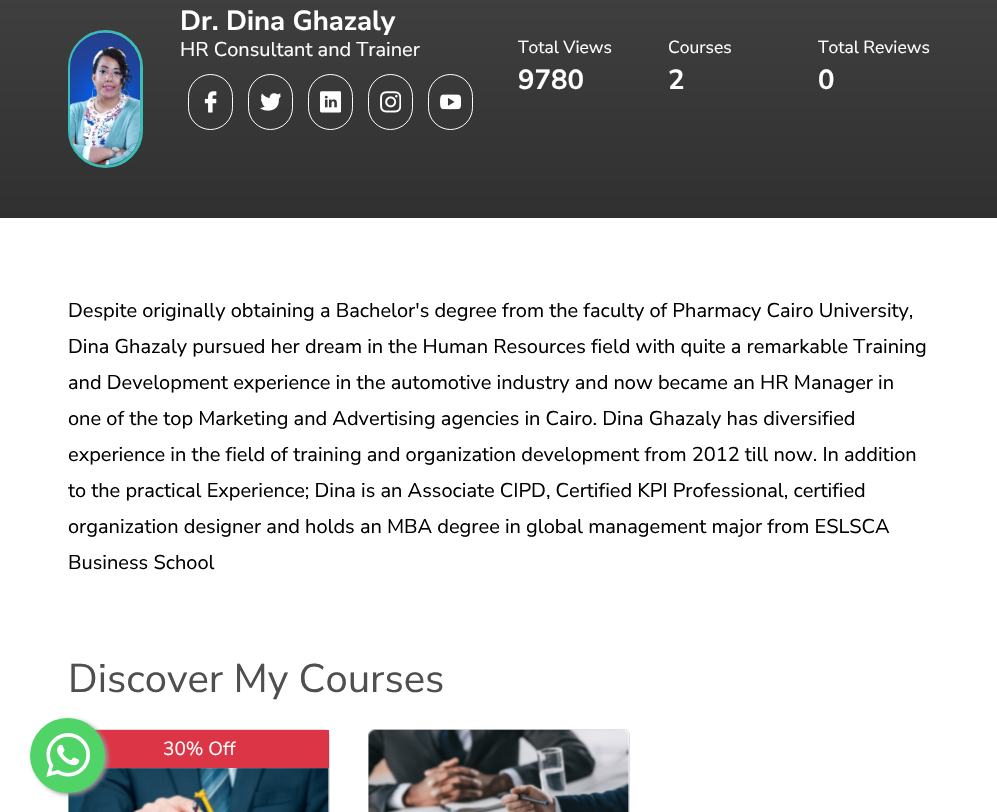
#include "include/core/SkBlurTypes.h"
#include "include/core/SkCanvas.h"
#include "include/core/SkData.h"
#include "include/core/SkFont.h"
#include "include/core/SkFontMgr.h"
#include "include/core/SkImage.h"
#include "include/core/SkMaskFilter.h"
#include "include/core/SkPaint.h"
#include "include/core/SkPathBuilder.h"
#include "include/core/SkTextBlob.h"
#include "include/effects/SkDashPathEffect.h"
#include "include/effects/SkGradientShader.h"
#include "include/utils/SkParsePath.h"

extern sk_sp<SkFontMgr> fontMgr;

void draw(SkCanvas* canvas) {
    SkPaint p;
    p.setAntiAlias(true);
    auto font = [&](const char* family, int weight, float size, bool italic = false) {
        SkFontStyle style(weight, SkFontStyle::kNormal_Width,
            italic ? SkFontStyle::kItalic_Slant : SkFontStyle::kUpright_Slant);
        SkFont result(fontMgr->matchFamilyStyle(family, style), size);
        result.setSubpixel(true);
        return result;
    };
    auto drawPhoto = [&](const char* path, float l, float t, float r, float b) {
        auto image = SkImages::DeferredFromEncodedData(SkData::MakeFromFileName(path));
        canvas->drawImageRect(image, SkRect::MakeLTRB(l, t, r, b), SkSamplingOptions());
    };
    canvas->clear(0xFFFFFFFF);
    {
        const SkColor colors[] = {0xFF404040, 0xFF303030};
        const float stops[] = {0.01f, 1};
        const SkPoint ends[] = {{499, -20}, {499, 218}};
        p.setShader(SkGradientShader::MakeLinear(ends, colors, stops, 2, SkTileMode::kClamp));
        p.setAlpha(255);
    }
    canvas->drawRect(SkRect::MakeLTRB(0, 0, 997, 218), p);
    p.setStyle(SkPaint::kStroke_Style);
    p.setStrokeWidth(3);
    p.setShader(nullptr);
    p.setColor(0xFF3CBCB5);
    canvas->drawRoundRect(SkRect::MakeLTRB(69.5f, 31.5f, 141.5f, 166.5f), 36, 36, p);
    drawPhoto("media/1.png", 70, 32, 140, 165);
    auto font1 = font("Nunito Sans", 700, 27.5f);
    p.setStyle(SkPaint::kFill_Style);
    p.setColor(0xFFFFFFFF);
    canvas->drawString("Dr. Dina Ghazaly", 180, 30, font1, p);
    auto font2 = font("Nunito Sans", 400, 20);
    canvas->drawString("HR Consultant and Trainer", 180, 56, font2, p);
    p.setStyle(SkPaint::kStroke_Style);
    p.setStrokeWidth(1);
    canvas->drawRoundRect(SkRect::MakeLTRB(188.5f, 74.5f, 232.5f, 129.5f), 22, 22, p);
    drawPhoto("media/2.png", 204, 91, 217, 113);
    canvas->drawRoundRect(SkRect::MakeLTRB(248.5f, 74.5f, 292.5f, 129.5f), 22, 22, p);
    drawPhoto("media/3.png", 260, 93, 281, 111);
    canvas->drawRoundRect(SkRect::MakeLTRB(308.5f, 74.5f, 352.5f, 129.5f), 22, 22, p);
    drawPhoto("media/4.png", 320, 91, 341, 113);
    canvas->drawRoundRect(SkRect::MakeLTRB(368.5f, 74.5f, 412.5f, 129.5f), 22, 22, p);
    drawPhoto("media/5.png", 380, 91, 401, 113);
    canvas->drawRoundRect(SkRect::MakeLTRB(428.5f, 74.5f, 472.5f, 129.5f), 22, 22, p);
    drawPhoto("media/6.png", 440, 94, 461, 110);
    auto font3 = font("Nunito Sans", 400, 17.5f);
    p.setStyle(SkPaint::kFill_Style);
    canvas->drawString("Total Views", 518, 53, font3, p);
    canvas->drawString("9780", 518, 89, font1, p);
    canvas->drawString("Courses", 668, 53, font3, p);
    canvas->drawString("2", 668, 89, font1, p);
    canvas->drawString("Total Reviews", 818, 53, font3, p);
    canvas->drawString("0", 818, 89, font1, p);
    p.setColor(0xFF000000);
    {
        const struct { const char* s; float x, y; } items[] = {
            {"Despite originally obtaining a Bachelor's degree from the faculty of Pharmacy Cairo University,", 68, 317},
            {"Dina Ghazaly pursued her dream in the Human Resources field with quite a remarkable Training", 68, 353},
            {"and Development experience in the automotive industry and now became an HR Manager in", 68, 389},
            {"one of the top Marketing and Advertising agencies in Cairo. Dina Ghazaly has diversified", 68, 425},
            {"experience in the field of training and organization development from 2012 till now. In addition", 68, 461},
            {"to the practical Experience; Dina is an Associate CIPD, Certified KPI Professional, certified", 68, 497},
            {"organization designer and holds an MBA degree in global management major from ESLSCA", 68, 533},
            {"Business School", 68, 569},
        };
        for (auto [s, x, y] : items) {
            canvas->drawString(s, x, y, font2, p);
        }
    }
    auto font4 = font("Nunito Sans", 400, 40);
    p.setColor(0xFF4F4F4F);
    canvas->drawString("Discover My Courses", 68, 692, font4, p);
    p.setStyle(SkPaint::kStroke_Style);
    p.setColor(0xFFDDDDDD);
    canvas->drawPath(SkPathBuilder().moveTo(74, 729.5f).lineTo(324, 729.5f).cubicTo(327, 729.5f, 329.5f, 732, 329.5f, 735).lineTo(329.5f, 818.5f).lineTo(68.5f, 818.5f).lineTo(68.5f, 735).cubicTo(68.5f, 732, 71, 729.5f, 74, 729.5f).close().detach(), p);
    p.setStyle(SkPaint::kFill_Style);
    p.setColor(0xFFDC3545);
    canvas->drawRect(SkRect::MakeLTRB(95, 730, 329, 768), p);
    auto font5 = font("Nunito Sans", 400, 19);
    p.setColor(0xFFFFFFFF);
    canvas->drawString("30% Off", 163, 755, font5, p);
    drawPhoto("media/7.png", 68, 768, 329, 812);
    p.setStyle(SkPaint::kStroke_Style);
    p.setColor(0xFFDDDDDD);
    canvas->drawPath(SkPathBuilder().moveTo(374, 729.5f).lineTo(624, 729.5f).cubicTo(627, 729.5f, 629.5f, 732, 629.5f, 735).lineTo(629.5f, 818.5f).lineTo(368.5f, 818.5f).lineTo(368.5f, 735).cubicTo(368.5f, 732, 371, 729.5f, 374, 729.5f).close().detach(), p);
    drawPhoto("media/8.png", 368, 729, 629, 812);
    p.setStyle(SkPaint::kFill_Style);
    p.setColor(0xFF999999);
    p.setMaskFilter(SkMaskFilter::MakeBlur(kNormal_SkBlurStyle, 2));
    canvas->drawRoundRect(SkRect::MakeLTRB(33, 720, 108, 795), 37.5f, 37.5f, p);
    p.setMaskFilter(nullptr);
    p.setColor(0xFF51D467);
    canvas->drawCircle(67.5f, 755.5f, 37.5f, p);
    drawPhoto("media/9.png", 46, 733, 90, 777);
}
